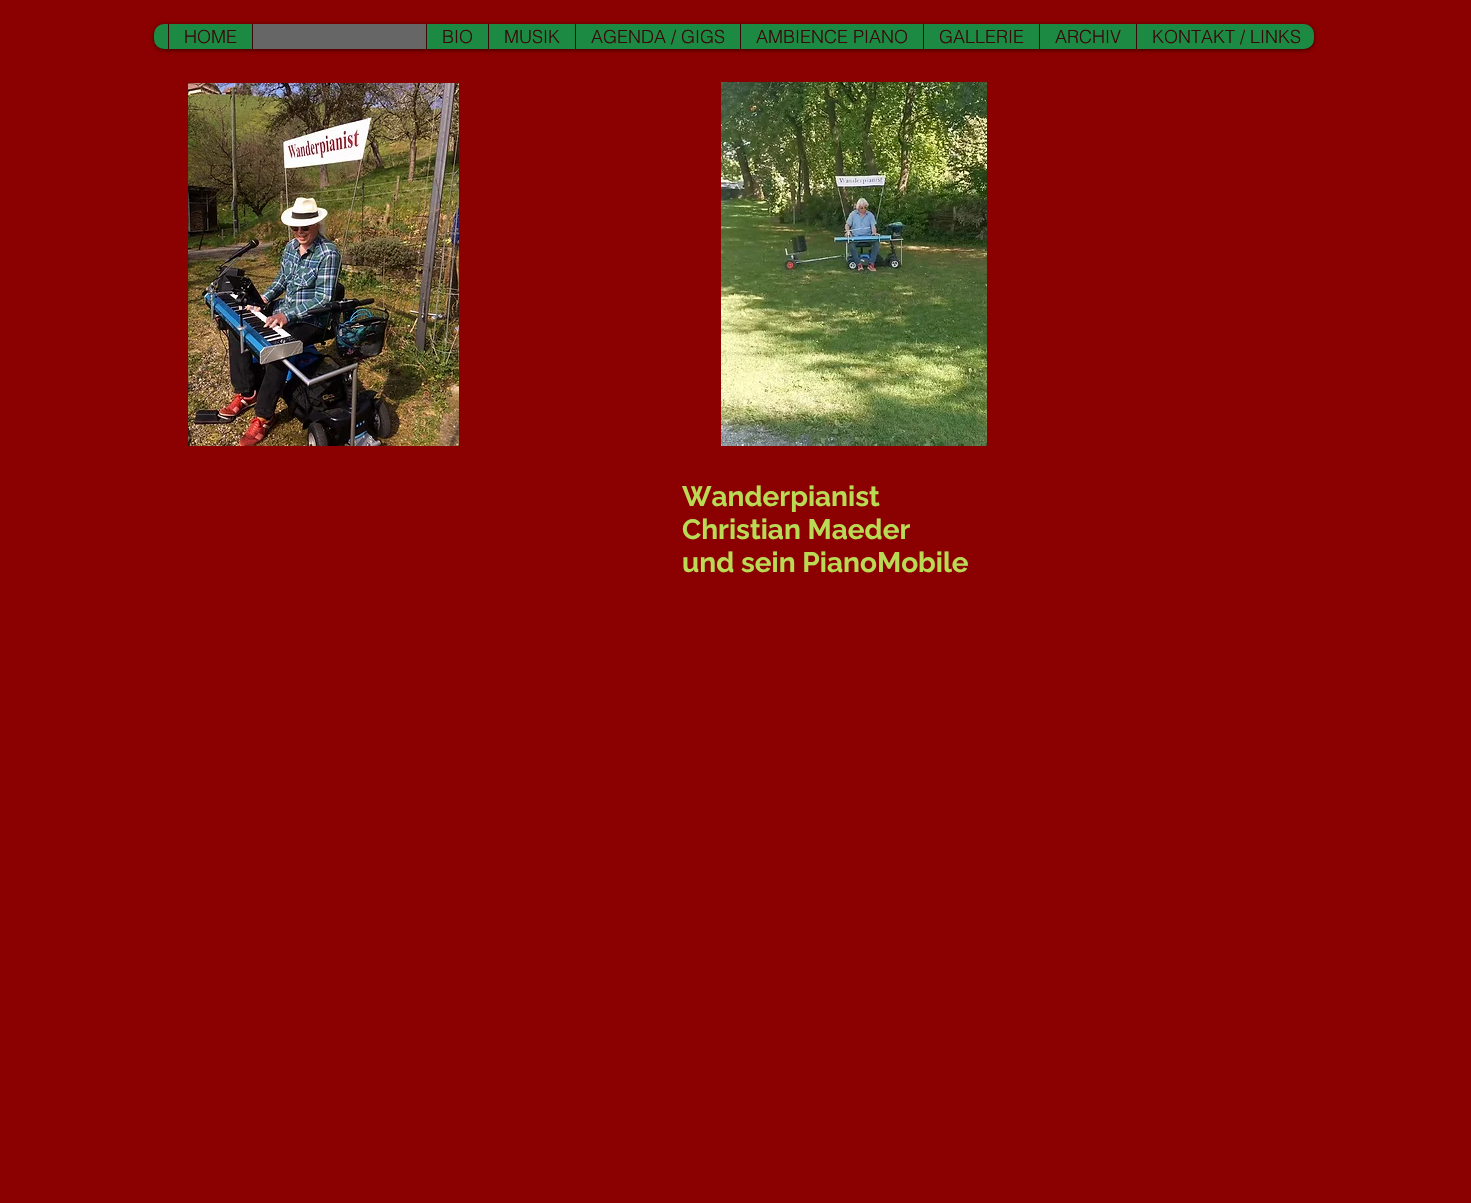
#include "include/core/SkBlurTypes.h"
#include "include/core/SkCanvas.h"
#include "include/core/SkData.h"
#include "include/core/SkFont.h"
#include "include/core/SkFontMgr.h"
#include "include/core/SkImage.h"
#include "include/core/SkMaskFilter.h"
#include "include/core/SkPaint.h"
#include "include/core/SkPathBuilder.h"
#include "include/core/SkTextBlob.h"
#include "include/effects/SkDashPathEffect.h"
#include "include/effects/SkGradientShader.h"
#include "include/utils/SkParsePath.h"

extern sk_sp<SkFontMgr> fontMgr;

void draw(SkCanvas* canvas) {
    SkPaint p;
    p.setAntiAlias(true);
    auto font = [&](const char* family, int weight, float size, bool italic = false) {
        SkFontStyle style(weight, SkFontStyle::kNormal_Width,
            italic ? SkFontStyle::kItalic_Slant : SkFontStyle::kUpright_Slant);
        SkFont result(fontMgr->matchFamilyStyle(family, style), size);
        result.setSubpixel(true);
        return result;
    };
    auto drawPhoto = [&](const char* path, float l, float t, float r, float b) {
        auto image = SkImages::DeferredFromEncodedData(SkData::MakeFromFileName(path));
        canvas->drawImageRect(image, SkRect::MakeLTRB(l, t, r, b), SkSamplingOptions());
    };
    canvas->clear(0xFF8B0000);
    p.setColor(0x99000000);
    p.setMaskFilter(SkMaskFilter::MakeBlur(kNormal_SkBlurStyle, 2));
    canvas->drawRoundRect(SkRect::MakeLTRB(154, 25, 1314, 50), 10, 10, p);
    p.setMaskFilter(nullptr);
    p.setColor(0xFF1C8A43);
    canvas->drawRoundRect(SkRect::MakeLTRB(154, 24, 1314, 49), 10, 10, p);
    p.setColor(0xFF39080B);
    canvas->drawRect(SkRect::MakeLTRB(168, 24, 169, 49), p);
    auto font1 = font("helvetica", 300, 18);
    canvas->drawString("HOME", 184, 43, font1, p);
    {
        const struct { float l, t, r, b; SkColor color; } items[] = {
            {253, 24, 426, 49, 0xFF666666},
            {252, 24, 253, 49, 0xFF39080B},
            {426, 24, 427, 49, 0xFF39080B},
        };
        for (auto [l, t, r, b, color] : items) {
            p.setColor(color);
            canvas->drawRect(SkRect::MakeLTRB(l, t, r, b), p);
        }
    }
    canvas->drawString("BIO", 442, 43, font1, p);
    canvas->drawRect(SkRect::MakeLTRB(488, 24, 489, 49), p);
    canvas->drawString("MUSIK", 504, 43, font1, p);
    canvas->drawRect(SkRect::MakeLTRB(575, 24, 576, 49), p);
    canvas->drawString("AGENDA / GIGS", 591, 43, font1, p);
    canvas->drawRect(SkRect::MakeLTRB(740, 24, 741, 49), p);
    canvas->drawString("AMBIENCE PIANO", 756, 43, font1, p);
    canvas->drawRect(SkRect::MakeLTRB(923, 24, 924, 49), p);
    canvas->drawString("GALLERIE", 939, 43, font1, p);
    canvas->drawRect(SkRect::MakeLTRB(1039, 24, 1040, 49), p);
    canvas->drawString("ARCHIV", 1055, 43, font1, p);
    canvas->drawRect(SkRect::MakeLTRB(1136, 24, 1137, 49), p);
    canvas->drawString("KONTAKT / LINKS", 1152, 43, font1, p);
    drawPhoto("media/1.png", 188, 83, 459, 446);
    drawPhoto("media/3.png", 721, 382, 987, 446);
    drawPhoto("media/2.png", 721, 82, 987, 445);
    auto font2 = font("Raleway", 700, 28);
    p.setColor(0xFFBADA55);
    {
        const struct { const char* s; float x, y; } items[] = {
            {"Wanderpianist", 682, 506},
            {"Christian Maeder", 682, 539},
            {"und sein PianoMobile", 682, 572},
        };
        for (auto [s, x, y] : items) {
            canvas->drawString(s, x, y, font2, p);
        }
    }
}
